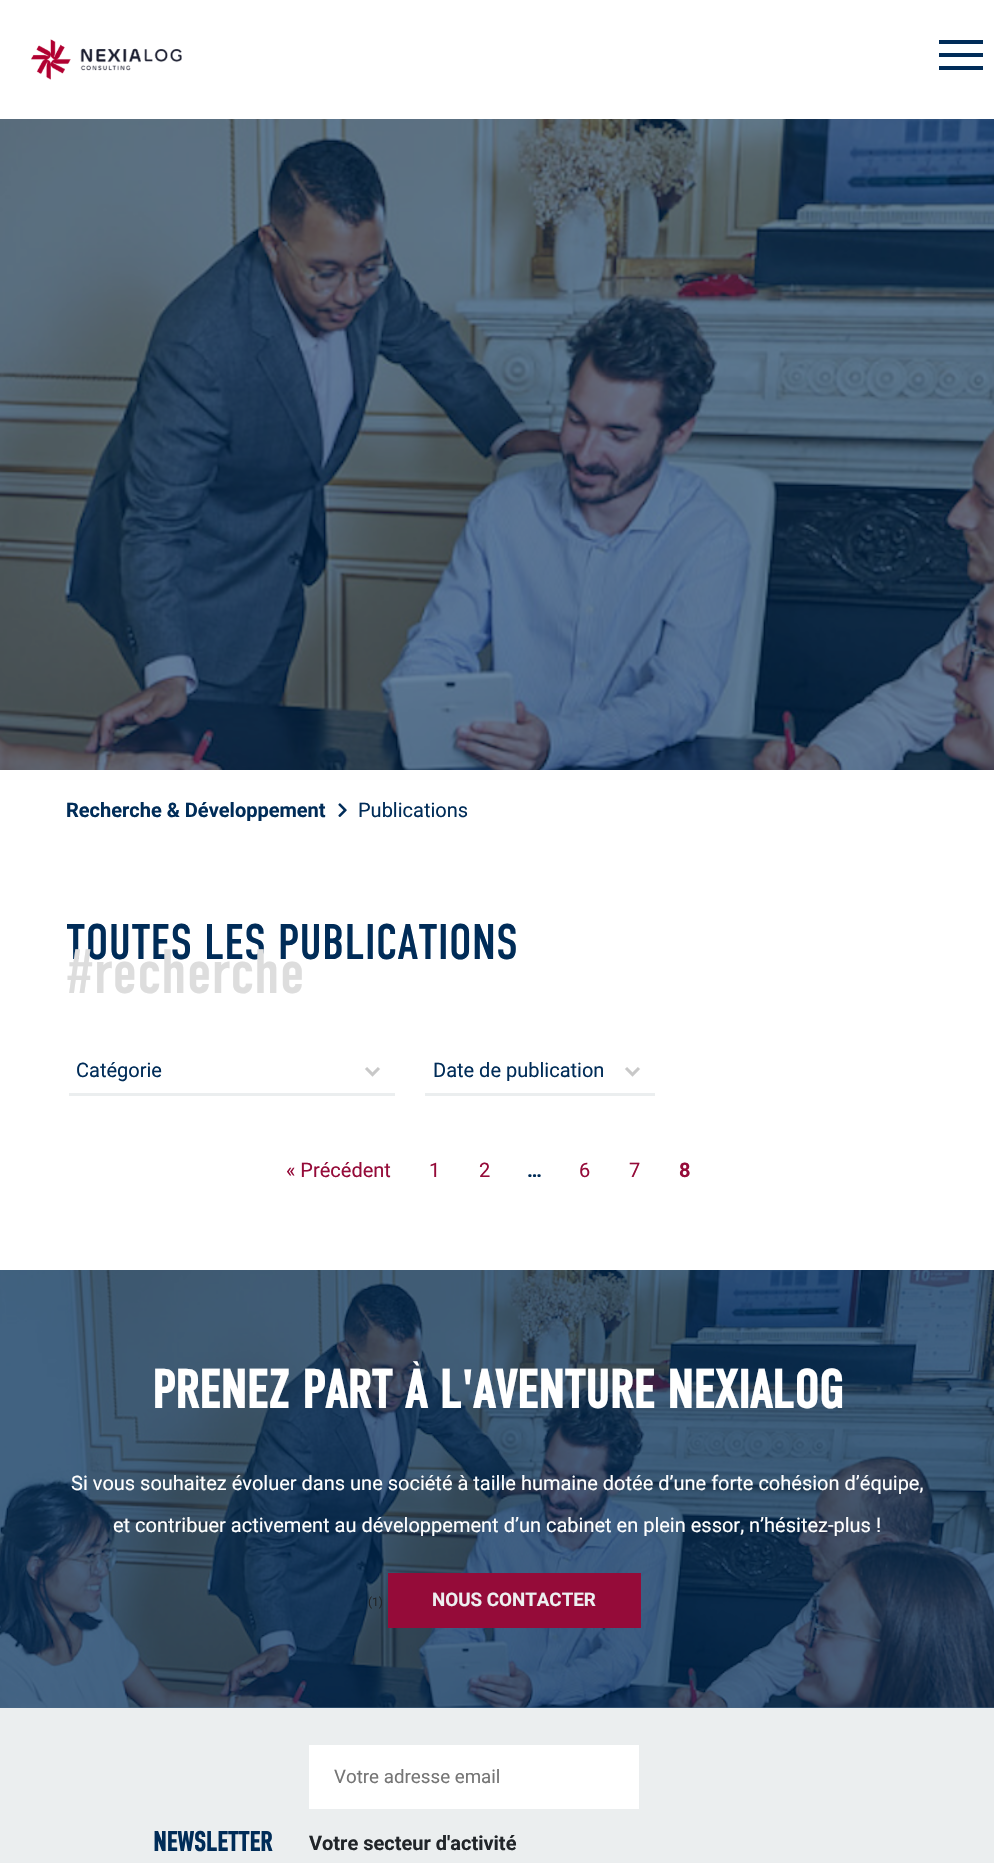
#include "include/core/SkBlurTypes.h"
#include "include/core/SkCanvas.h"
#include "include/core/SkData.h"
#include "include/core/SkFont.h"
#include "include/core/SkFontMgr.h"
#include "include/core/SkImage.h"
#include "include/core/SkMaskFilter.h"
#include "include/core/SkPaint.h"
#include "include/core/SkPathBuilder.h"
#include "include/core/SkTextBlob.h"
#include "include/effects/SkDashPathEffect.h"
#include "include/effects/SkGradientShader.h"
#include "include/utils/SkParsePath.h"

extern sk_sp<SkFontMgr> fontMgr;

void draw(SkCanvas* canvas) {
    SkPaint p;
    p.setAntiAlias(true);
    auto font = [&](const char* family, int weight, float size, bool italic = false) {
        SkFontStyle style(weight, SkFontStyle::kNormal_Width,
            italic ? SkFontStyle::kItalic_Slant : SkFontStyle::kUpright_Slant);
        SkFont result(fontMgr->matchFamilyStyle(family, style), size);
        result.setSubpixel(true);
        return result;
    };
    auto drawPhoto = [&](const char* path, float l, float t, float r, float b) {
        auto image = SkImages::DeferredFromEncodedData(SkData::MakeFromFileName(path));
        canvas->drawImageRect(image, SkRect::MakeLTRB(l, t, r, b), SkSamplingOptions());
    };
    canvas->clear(0xFFFFFFFF);
    p.setColor(0xFF476787);
    canvas->drawRect(SkRect::MakeLTRB(0, 1707, 994, 1708), p);
    drawPhoto("media/1.png", 31, 39, 182, 80);
    {
        const struct { float l, t, r, b; SkColor color; } items[] = {
            {939, 40, 983, 44, 0xFF002C58},
            {939, 53, 983, 57, 0xFF002C58},
            {939, 66, 983, 70, 0xFF002C58},
        };
        for (auto [l, t, r, b, color] : items) {
            p.setColor(color);
            canvas->drawRect(SkRect::MakeLTRB(l, t, r, b), p);
        }
    }
    drawPhoto("media/2.png", 0, 119, 994, 770);
    auto font1 = font("Roboto", 700, 20);
    canvas->drawString("Recherche & Développement", 66, 817, font1, p);
    drawPhoto("media/3.png", 338, 803, 347, 817);
    auto font2 = font("Roboto", 400, 20);
    canvas->drawString("Publications", 358, 817, font2, p);
    auto font3 = font("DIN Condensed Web", 400, 50);
    canvas->drawString("TOUTES LES PUBLICATIONS", 66, 959, font3, p);
    auto font4 = font("DIN Condensed Web", 400, 62.5f);
    p.setColor(0xFFDDDDDD);
    canvas->drawString("#recherche", 66, 993, font4, p);
    p.setColor(0xFFEBEEEF);
    canvas->drawRect(SkRect::MakeLTRB(69, 1093, 395, 1096), p);
    p.setColor(0xFF002C58);
    canvas->drawString("Catégorie", 76, 1077, font2, p);
    p.setStyle(SkPaint::kStroke_Style);
    p.setStrokeWidth(3.1f);
    p.setColor(0xFFC8C8C8);
    canvas->drawPath(SkPathBuilder().moveTo(372.5f, 1074.5f).lineTo(366, 1068).lineTo(372.5f, 1074.5f).lineTo(379, 1068).close().detach(), p);
    p.setStyle(SkPaint::kFill_Style);
    p.setColor(0xFFEBEEEF);
    canvas->drawRect(SkRect::MakeLTRB(425, 1093, 655, 1096), p);
    p.setColor(0xFF002C58);
    canvas->drawString("Date de publication", 433, 1077, font2, p);
    p.setStyle(SkPaint::kStroke_Style);
    p.setColor(0xFFC8C8C8);
    canvas->drawPath(SkPathBuilder().moveTo(632.5f, 1074.5f).lineTo(626, 1068).lineTo(632.5f, 1074.5f).lineTo(639, 1068).close().detach(), p);
    p.setStyle(SkPaint::kFill_Style);
    p.setColor(0xFF950B39);
    {
        const struct { const char* s; float x, y; } items[] = {
            {"« Précédent", 286, 1177},
            {"1", 429, 1177},
            {"2", 479, 1177},
        };
        for (auto [s, x, y] : items) {
            canvas->drawString(s, x, y, font2, p);
        }
    }
    p.setColor(0xFF002C58);
    canvas->drawString("…", 527, 1177, font1, p);
    p.setColor(0xFF950B39);
    canvas->drawString("6", 579, 1177, font2, p);
    canvas->drawString("7", 629, 1177, font2, p);
    canvas->drawString("8", 679, 1177, font1, p);
    drawPhoto("media/4.png", 0, 1270, 994, 1708);
    auto font5 = font("DIN Condensed Web", 700, 53.75f);
    p.setColor(0xFFFFFFFF);
    canvas->drawString("PRENEZ PART À L'AVENTURE NEXIALOG", 152, 1408, font5, p);
    canvas->drawString("Si vous souhaitez évoluer dans une société à taille humaine dotée d’une forte cohésion d’équipe,", 71, 1490, font2, p);
    canvas->drawString("et contribuer activement au développement d’un cabinet en plein essor, n’hésitez-plus !", 113, 1532, font2, p);
    auto font6 = font("Roboto", 400, 12);
    p.setColor(0xFF212529);
    canvas->drawString("(1)", 368, 1606, font6, p);
    p.setColor(0xFF950B39);
    canvas->drawRect(SkRect::MakeLTRB(388, 1573, 641, 1628), p);
    auto font7 = font("Roboto", 700, 18.75f);
    p.setColor(0xFFEDEFF0);
    canvas->drawString("NOUS CONTACTER", 432, 1606, font7, p);
    p.setColor(0xFFEBEEEF);
    canvas->drawRect(SkRect::MakeLTRB(0, 1708, 994, 1863), p);
    auto font8 = font("DIN Condensed Web", 700, 27.5f);
    p.setColor(0xFF002C58);
    canvas->drawString("NEWSLETTER", 153, 1851, font8, p);
    p.setColor(0xFFFFFFFF);
    canvas->drawRect(SkRect::MakeLTRB(309, 1745, 639, 1809), p);
    auto font9 = font("Roboto", 400, 18.75f);
    p.setColor(0xFF757575);
    canvas->drawString("Votre adresse email", 334, 1783, font9, p);
    p.setColor(0xFF212529);
    canvas->drawString("Votre secteur d'activité", 309, 1850, font1, p);
}
